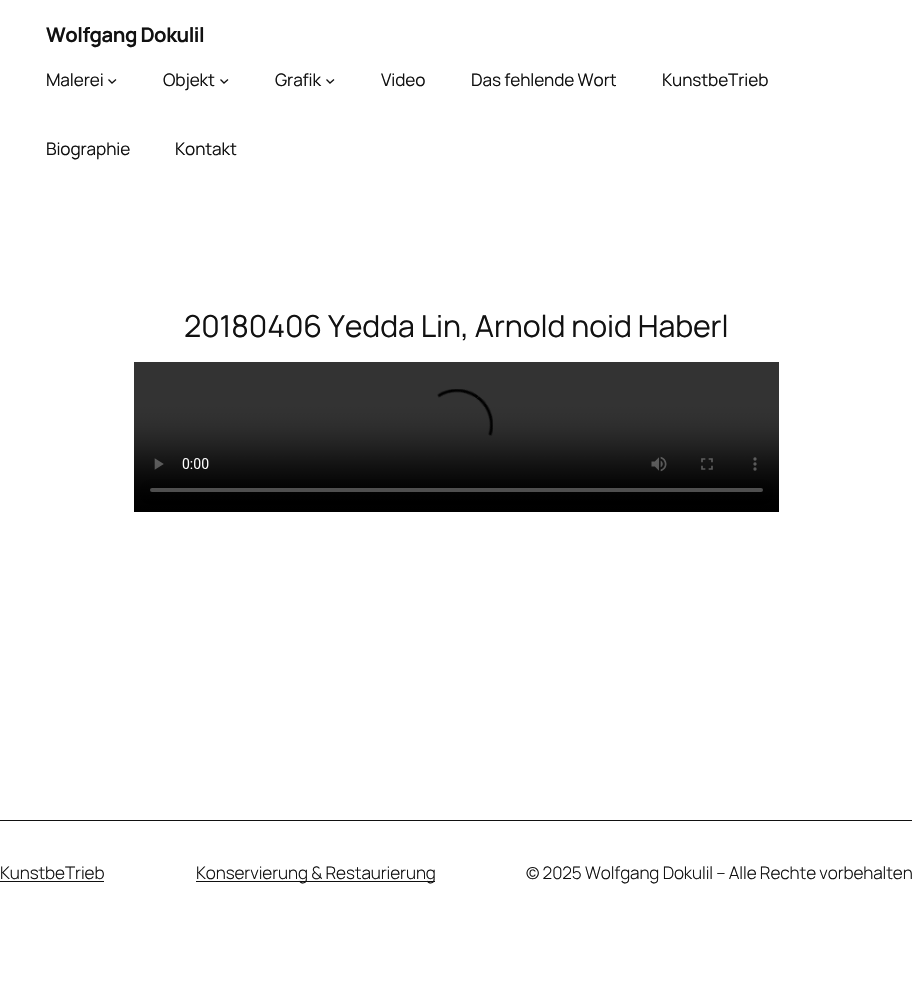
#include "include/core/SkBlurTypes.h"
#include "include/core/SkCanvas.h"
#include "include/core/SkData.h"
#include "include/core/SkFont.h"
#include "include/core/SkFontMgr.h"
#include "include/core/SkImage.h"
#include "include/core/SkMaskFilter.h"
#include "include/core/SkPaint.h"
#include "include/core/SkPathBuilder.h"
#include "include/core/SkTextBlob.h"
#include "include/effects/SkDashPathEffect.h"
#include "include/effects/SkGradientShader.h"
#include "include/utils/SkParsePath.h"

extern sk_sp<SkFontMgr> fontMgr;

void draw(SkCanvas* canvas) {
    SkPaint p;
    p.setAntiAlias(true);
    auto font = [&](const char* family, int weight, float size, bool italic = false) {
        SkFontStyle style(weight, SkFontStyle::kNormal_Width,
            italic ? SkFontStyle::kItalic_Slant : SkFontStyle::kUpright_Slant);
        SkFont result(fontMgr->matchFamilyStyle(family, style), size);
        result.setSubpixel(true);
        return result;
    };
    auto drawTracked = [&](const char* s, float x, float y, const SkFont& font, const SkPaint& ink, float letter, float word) {
        std::vector<SkGlyphID> glyphs(font.countText(s, strlen(s), SkTextEncoding::kUTF8));
        std::vector<float> xs(glyphs.size());
        font.textToGlyphs(s, strlen(s), SkTextEncoding::kUTF8, glyphs);
        font.getXPos(glyphs, xs, x);
        float extra = 0;
        for (size_t i = 0; i < glyphs.size(); i++) {
            xs[i] += extra;
            extra += letter + word * (glyphs[i] == font.unicharToGlyph(' '));
        }
        canvas->drawTextBlob(SkTextBlob::MakeFromPosHGlyphs(glyphs, xs, y, font), 0, 0, ink);
    };
    auto drawPhoto = [&](const char* path, float l, float t, float r, float b) {
        auto image = SkImages::DeferredFromEncodedData(SkData::MakeFromFileName(path));
        canvas->drawImageRect(image, SkRect::MakeLTRB(l, t, r, b), SkSamplingOptions());
    };
    canvas->clear(0xFFFFFFFF);
    auto font1 = font("Manrope", 700, 20.25f);
    p.setColor(0xFF111111);
    drawTracked("Wolfgang Dokulil", 46, 42, font1, p, -0.5f, 0);
    auto font2 = font("Manrope", 400, 17.2f);
    drawTracked("Malerei", 46, 86, font2, p, -0.1f, 0);
    p.setStyle(SkPaint::kStroke_Style);
    p.setStrokeWidth(1.3f);
    canvas->drawPath(SkPathBuilder().moveTo(108.5f, 79.5f).lineTo(112, 83).lineTo(116, 79.5f).detach(), p);
    p.setStyle(SkPaint::kFill_Style);
    drawTracked("Objekt", 163, 86, font2, p, -0.1f, 0);
    p.setStyle(SkPaint::kStroke_Style);
    canvas->drawPath(SkPathBuilder().moveTo(220.5f, 79.5f).lineTo(224, 83).lineTo(228, 79.5f).detach(), p);
    p.setStyle(SkPaint::kFill_Style);
    drawTracked("Grafik", 275, 86, font2, p, -0.1f, 0);
    p.setStyle(SkPaint::kStroke_Style);
    canvas->drawPath(SkPathBuilder().moveTo(326.5f, 79.5f).lineTo(330, 83).lineTo(334, 79.5f).detach(), p);
    p.setStyle(SkPaint::kFill_Style);
    {
        const struct { const char* s; float x, y; } items[] = {
            {"Video", 381, 86},
            {"Das fehlende Wort", 471, 86},
            {"KunstbeTrieb", 662, 86},
            {"Biographie", 46, 155},
            {"Kontakt", 175, 155},
        };
        for (auto [s, x, y] : items) {
            drawTracked(s, x, y, font2, p, -0.1f, 0);
        }
    }
    auto font3 = font("Manrope", 400, 30.3f);
    drawTracked("20180406 Yedda Lin, Arnold noid Haberl", 184, 337, font3, p, -0.1f, 0);
    drawPhoto("media/1.png", 134, 362, 779, 512);
    canvas->drawRect(SkRect::MakeLTRB(0, 820, 912, 821), p);
    auto font4 = font("Manrope", 300, 17.2f);
    drawTracked("KunstbeTrieb", 0, 879, font4, p, -0.1f, 0);
    canvas->drawRect(SkRect::MakeLTRB(0, 881, 104, 882), p);
    canvas->drawRect(SkRect::MakeLTRB(196, 881, 435, 882), p);
    drawTracked("Konservierung & Restaurierung", 196, 879, font4, p, -0.1f, 0);
    drawTracked("© 2025 Wolfgang Dokulil – Alle Rechte vorbehalten", 526, 879, font4, p, -0.1f, 0);
}
